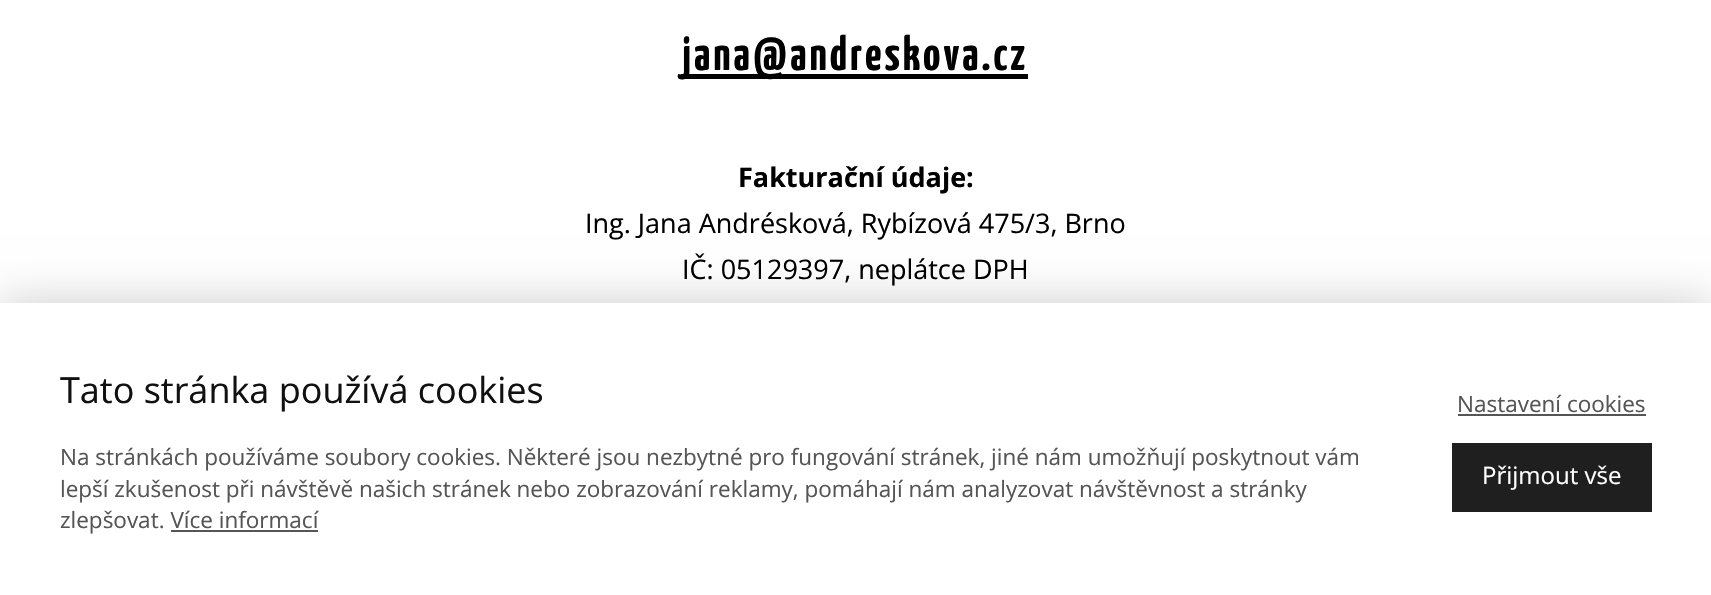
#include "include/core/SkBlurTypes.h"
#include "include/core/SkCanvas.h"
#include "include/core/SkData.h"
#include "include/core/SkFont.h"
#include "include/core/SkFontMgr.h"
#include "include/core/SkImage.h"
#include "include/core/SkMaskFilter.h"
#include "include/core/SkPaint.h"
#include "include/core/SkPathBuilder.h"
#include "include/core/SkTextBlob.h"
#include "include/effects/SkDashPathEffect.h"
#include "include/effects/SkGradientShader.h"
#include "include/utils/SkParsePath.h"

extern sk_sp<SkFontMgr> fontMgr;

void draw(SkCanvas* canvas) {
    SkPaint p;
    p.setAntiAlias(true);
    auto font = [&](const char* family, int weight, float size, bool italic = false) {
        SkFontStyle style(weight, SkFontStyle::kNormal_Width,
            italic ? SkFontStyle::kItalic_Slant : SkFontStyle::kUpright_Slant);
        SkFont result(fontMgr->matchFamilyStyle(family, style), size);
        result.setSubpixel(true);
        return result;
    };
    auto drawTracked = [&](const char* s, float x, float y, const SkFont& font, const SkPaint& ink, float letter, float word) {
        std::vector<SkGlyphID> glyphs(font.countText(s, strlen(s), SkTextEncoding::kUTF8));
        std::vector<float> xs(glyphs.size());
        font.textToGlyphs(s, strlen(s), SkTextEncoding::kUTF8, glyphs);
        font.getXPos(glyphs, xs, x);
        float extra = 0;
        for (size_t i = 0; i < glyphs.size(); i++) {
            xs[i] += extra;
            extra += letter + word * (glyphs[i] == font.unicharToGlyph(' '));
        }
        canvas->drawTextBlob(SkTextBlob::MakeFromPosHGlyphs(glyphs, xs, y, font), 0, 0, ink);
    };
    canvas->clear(0xFFFFFFFF);
    p.setColor(0xFF000000);
    canvas->drawRect(SkRect::MakeLTRB(681, 74, 1028, 79), p);
    auto font1 = font("Yanone Kaffeesatz", 700, 48);
    drawTracked("jana@andreskova.cz", 682, 70, font1, p, 3, 0);
    auto font2 = font("Open Sans", 700, 27);
    canvas->drawString("Fakturační údaje:", 738, 187, font2, p);
    auto font3 = font("Open Sans", 400, 27);
    canvas->drawString("Ing. Jana Andrésková, Rybízová 475/3, Brno", 585, 233, font3, p);
    canvas->drawString("IČ: 05129397, neplátce DPH", 682, 279, font3, p);
    p.setColor(0x33000000);
    p.setMaskFilter(SkMaskFilter::MakeBlur(kNormal_SkBlurStyle, 22.5f));
    canvas->drawRect(SkRect::MakeLTRB(0, 303, 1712, 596), p);
    p.setMaskFilter(nullptr);
    p.setColor(0xFFFFFFFF);
    canvas->drawRect(SkRect::MakeLTRB(0, 303, 1711, 595), p);
    auto font4 = font("Open Sans", 400, 36);
    p.setColor(0xFF111111);
    canvas->drawString("Tato stránka používá cookies", 60, 403, font4, p);
    auto font5 = font("Open Sans", 400, 22.5f);
    p.setColor(0xFF555555);
    {
        const struct { const char* s; float x, y; } items[] = {
            {"Na stránkách používáme soubory cookies. Některé jsou nezbytné pro fungování stránek, jiné nám umožňují poskytnout vám", 60, 465},
            {"lepší zkušenost při návštěvě našich stránek nebo zobrazování reklamy, pomáhají nám analyzovat návštěvnost a stránky", 60, 497},
            {"zlepšovat. Více informací", 60, 528},
        };
        for (auto [s, x, y] : items) {
            canvas->drawString(s, x, y, font5, p);
        }
    }
    canvas->drawRect(SkRect::MakeLTRB(171, 530, 318, 532), p);
    canvas->drawString("Nastavení cookies", 1457, 412, font5, p);
    canvas->drawRect(SkRect::MakeLTRB(1458, 414, 1646, 416), p);
    p.setColor(0xFF1F1F1F);
    canvas->drawRect(SkRect::MakeLTRB(1452, 443, 1652, 512), p);
    auto font6 = font("Open Sans", 400, 24);
    p.setColor(0xFFFFFFFF);
    canvas->drawString("Přijmout vše", 1482, 484, font6, p);
}
